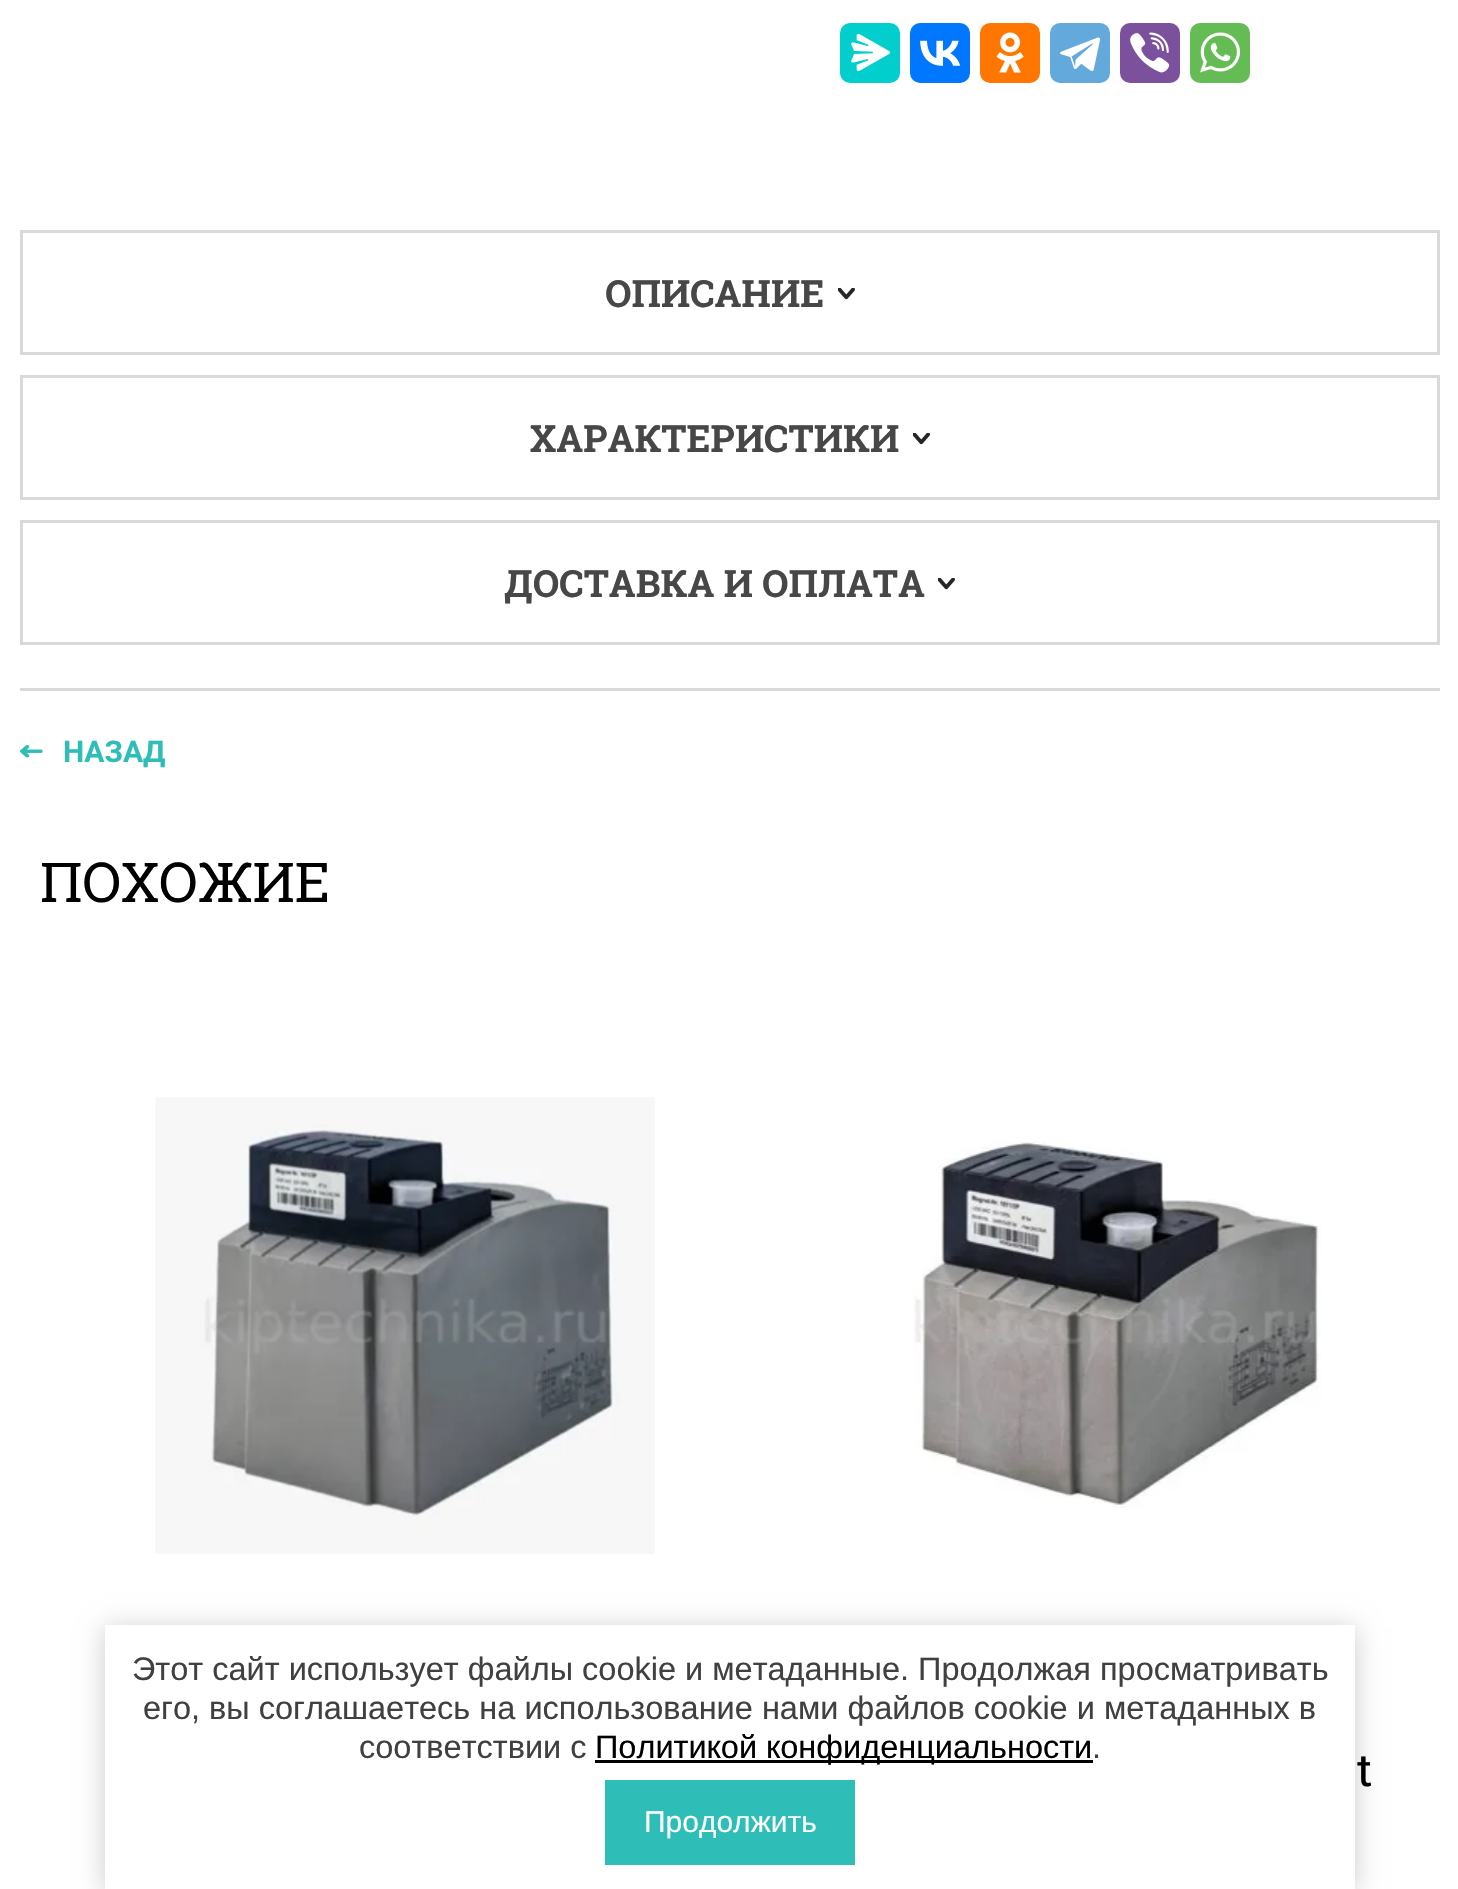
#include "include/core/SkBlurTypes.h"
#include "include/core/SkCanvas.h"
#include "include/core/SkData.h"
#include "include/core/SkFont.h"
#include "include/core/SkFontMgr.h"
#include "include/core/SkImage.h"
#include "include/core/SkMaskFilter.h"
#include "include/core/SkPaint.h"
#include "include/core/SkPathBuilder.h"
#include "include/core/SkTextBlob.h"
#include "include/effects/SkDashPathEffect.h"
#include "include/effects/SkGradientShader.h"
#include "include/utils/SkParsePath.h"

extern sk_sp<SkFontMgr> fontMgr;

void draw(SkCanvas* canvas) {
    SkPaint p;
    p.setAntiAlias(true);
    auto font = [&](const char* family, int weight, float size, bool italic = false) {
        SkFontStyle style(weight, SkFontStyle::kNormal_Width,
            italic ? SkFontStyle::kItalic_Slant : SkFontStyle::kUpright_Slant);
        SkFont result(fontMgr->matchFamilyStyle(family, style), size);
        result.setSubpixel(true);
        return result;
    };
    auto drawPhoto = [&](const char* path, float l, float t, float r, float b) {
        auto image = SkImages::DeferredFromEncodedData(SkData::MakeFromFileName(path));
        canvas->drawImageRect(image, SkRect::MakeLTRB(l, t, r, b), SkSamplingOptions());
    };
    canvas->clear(0xFFFFFFFF);
    p.setColor(0xFF03CECE);
    canvas->drawRoundRect(SkRect::MakeLTRB(840, 23, 900, 83), 10, 10, p);
    drawPhoto("media/1.png", 851, 33, 890, 72);
    p.setColor(0xFF0077FF);
    canvas->drawRoundRect(SkRect::MakeLTRB(910, 23, 970, 83), 10, 10, p);
    drawPhoto("media/2.png", 920, 40, 961, 66);
    p.setColor(0xFFFF7700);
    canvas->drawRoundRect(SkRect::MakeLTRB(980, 23, 1040, 83), 10, 10, p);
    drawPhoto("media/3.png", 996, 32, 1024, 73);
    p.setColor(0xFF64A9DC);
    canvas->drawRoundRect(SkRect::MakeLTRB(1050, 23, 1110, 83), 10, 10, p);
    drawPhoto("media/4.png", 1060, 37, 1100, 71);
    p.setColor(0xFF7B519D);
    canvas->drawRoundRect(SkRect::MakeLTRB(1120, 23, 1180, 83), 10, 10, p);
    drawPhoto("media/5.png", 1130, 32, 1170, 73);
    p.setColor(0xFF65BC54);
    canvas->drawRoundRect(SkRect::MakeLTRB(1190, 23, 1250, 83), 10, 10, p);
    drawPhoto("media/6.png", 1200, 32, 1240, 73);
    p.setColor(0xFFD9D9D9);
    canvas->drawRect(SkRect::MakeLTRB(20, 688, 1440, 691), p);
    p.setStyle(SkPaint::kStroke_Style);
    p.setStrokeWidth(3);
    canvas->drawRect(SkRect::MakeLTRB(21.5f, 231.5f, 1438.5f, 353.5f), p);
    auto font1 = font("Roboto Slab", 700, 37.5f);
    p.setStyle(SkPaint::kFill_Style);
    p.setColor(0xFF474747);
    canvas->drawString("ОПИСАНИЕ", 605, 307, font1, p);
    drawPhoto("media/7.png", 838, 288, 855, 300);
    p.setStyle(SkPaint::kStroke_Style);
    p.setColor(0xFFD9D9D9);
    canvas->drawRect(SkRect::MakeLTRB(21.5f, 376.5f, 1438.5f, 498.5f), p);
    p.setStyle(SkPaint::kFill_Style);
    p.setColor(0xFF474747);
    canvas->drawString("ХАРАКТЕРИСТИКИ", 530, 452, font1, p);
    drawPhoto("media/7.png", 913, 433, 930, 445);
    p.setStyle(SkPaint::kStroke_Style);
    p.setColor(0xFFD9D9D9);
    canvas->drawRect(SkRect::MakeLTRB(21.5f, 521.5f, 1438.5f, 643.5f), p);
    p.setStyle(SkPaint::kFill_Style);
    p.setColor(0xFF474747);
    canvas->drawString("ДОСТАВКА И ОПЛАТА", 504, 597, font1, p);
    drawPhoto("media/7.png", 938, 578, 955, 590);
    drawPhoto("media/8.png", 20, 745, 43, 758);
    auto font2 = font("Roboto", 700, 30);
    p.setColor(0xFF2FBDB8);
    canvas->drawString("НАЗАД", 63, 762, font2, p);
    auto font3 = font("Roboto Slab", 400, 55);
    p.setColor(0xFF000000);
    canvas->drawString("ПОХОЖИЕ", 40, 902, font3, p);
    drawPhoto("media/9.png", 155, 1097, 655, 1554);
    drawPhoto("media/10.png", 914, 1141, 1322, 1508);
    auto font4 = font("Roboto Slab", 400, 45);
    canvas->drawString("t", 1356, 1786, font4, p);
    p.setColor(0x33000000);
    p.setMaskFilter(SkMaskFilter::MakeBlur(kNormal_SkBlurStyle, 12.5f));
    canvas->drawRect(SkRect::MakeLTRB(105, 1628, 1355, 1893), p);
    p.setMaskFilter(nullptr);
    p.setColor(0xFFFFFFFF);
    canvas->drawRect(SkRect::MakeLTRB(105, 1625, 1355, 1889), p);
    auto font5 = font("Liberation Sans", 400, 32.5f);
    p.setColor(0xFF404040);
    {
        const struct { const char* s; float x, y; } items[] = {
            {"Этот сайт использует файлы cookie и метаданные. Продолжая просматривать", 132, 1680},
            {"его, вы соглашаетесь на использование нами файлов cookie и метаданных в", 143, 1719},
            {"соответствии с", 359, 1758},
        };
        for (auto [s, x, y] : items) {
            canvas->drawString(s, x, y, font5, p);
        }
    }
    p.setColor(0xFF000000);
    canvas->drawRect(SkRect::MakeLTRB(595, 1760, 1093, 1763), p);
    canvas->drawString("Политикой конфиденциальности", 595, 1758, font5, p);
    p.setColor(0xFF404040);
    canvas->drawString(".", 1092, 1758, font5, p);
    p.setColor(0xFF2FBDB8);
    canvas->drawRect(SkRect::MakeLTRB(605, 1780, 855, 1865), p);
    auto font6 = font("Liberation Sans", 400, 30);
    p.setColor(0xFFFFFFFF);
    canvas->drawString("Продолжить", 644, 1832, font6, p);
}
